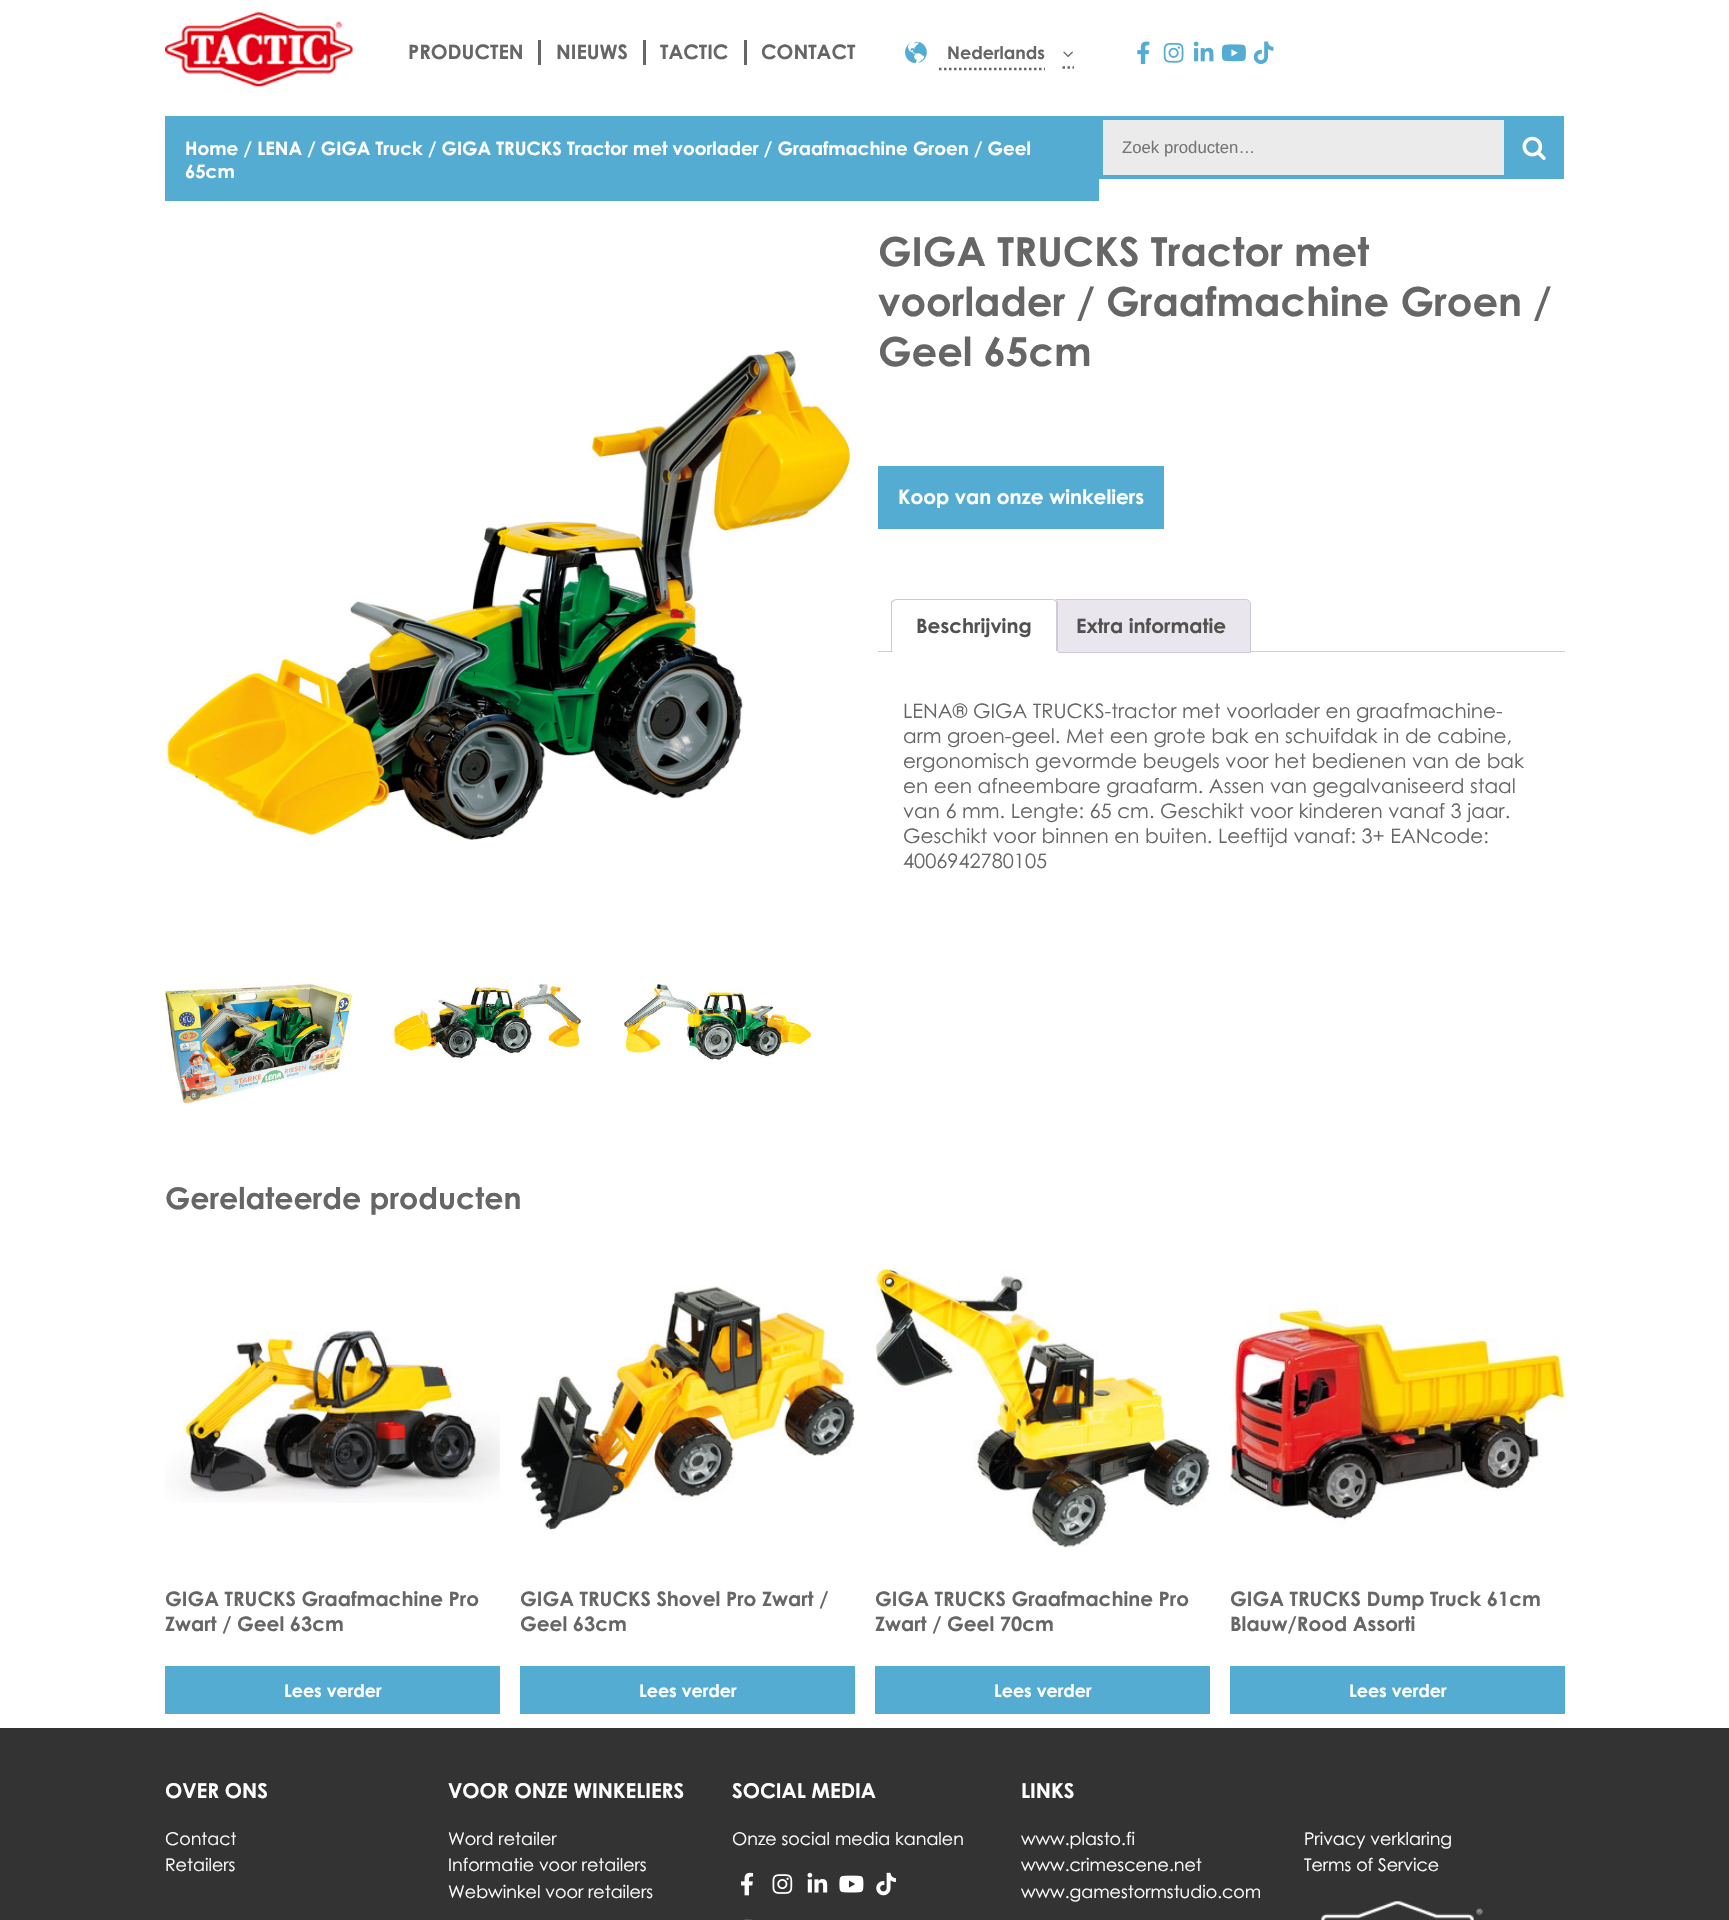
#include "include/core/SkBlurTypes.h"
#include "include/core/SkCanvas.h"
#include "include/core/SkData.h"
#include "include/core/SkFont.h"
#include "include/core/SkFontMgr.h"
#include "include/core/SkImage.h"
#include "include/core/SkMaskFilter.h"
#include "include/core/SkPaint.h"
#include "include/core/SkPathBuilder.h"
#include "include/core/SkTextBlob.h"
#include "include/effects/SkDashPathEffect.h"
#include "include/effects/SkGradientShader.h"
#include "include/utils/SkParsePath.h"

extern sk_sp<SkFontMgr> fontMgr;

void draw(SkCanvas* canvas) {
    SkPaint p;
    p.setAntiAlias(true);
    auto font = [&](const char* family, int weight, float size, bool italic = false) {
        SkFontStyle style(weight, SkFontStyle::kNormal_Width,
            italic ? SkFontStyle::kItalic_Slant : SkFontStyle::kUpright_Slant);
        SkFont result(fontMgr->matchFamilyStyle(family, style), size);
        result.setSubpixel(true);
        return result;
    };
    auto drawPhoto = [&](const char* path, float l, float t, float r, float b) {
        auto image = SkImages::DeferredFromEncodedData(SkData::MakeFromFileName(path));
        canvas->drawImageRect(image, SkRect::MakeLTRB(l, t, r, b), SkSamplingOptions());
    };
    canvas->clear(0xFFFFFFFF);
    drawPhoto("media/1.png", 165, 12, 353, 87);
    auto font1 = font("Century Gothic", 700, 20);
    p.setColor(0xFF666666);
    canvas->drawString("PRODUCTEN", 408, 59, font1, p);
    canvas->drawRect(SkRect::MakeLTRB(538, 40, 541, 65), p);
    canvas->drawString("NIEUWS", 556, 59, font1, p);
    canvas->drawRect(SkRect::MakeLTRB(643, 40, 646, 65), p);
    canvas->drawString("TACTIC", 660, 59, font1, p);
    canvas->drawRect(SkRect::MakeLTRB(744, 40, 747, 65), p);
    canvas->drawString("CONTACT", 761, 59, font1, p);
    drawPhoto("media/2.png", 905, 41, 927, 64);
    auto font2 = font("Century Gothic", 700, 17.5f);
    canvas->drawString("Nederlands", 947, 59, font2, p);
    p.setStyle(SkPaint::kStroke_Style);
    p.setStrokeWidth(2.5f);
    p.setPathEffect(SkDashPathEffect::Make({{2.5f, 2.5f}}, 0));
    canvas->drawPath(SkPathBuilder().moveTo(939, 69).lineTo(1045, 69).detach(), p);
    p.setPathEffect(nullptr);
    canvas->drawPath(SkPathBuilder().moveTo(1062.5f, 67.5f).lineTo(1065, 67.5f).moveTo(1067.5f, 67.5f).lineTo(1070, 67.5f).moveTo(1072.5f, 67.5f).lineTo(1074, 67.5f).detach(), p);
    drawPhoto("media/3.png", 1063, 51, 1073, 58);
    drawPhoto("media/4.png", 1137, 41, 1150, 65);
    drawPhoto("media/5.png", 1163, 42, 1184, 63);
    drawPhoto("media/6.png", 1193, 41, 1214, 62);
    drawPhoto("media/7.png", 1221, 44, 1246, 62);
    drawPhoto("media/8.png", 1253, 41, 1274, 64);
    p.setStyle(SkPaint::kFill_Style);
    p.setColor(0xFF54ACD2);
    canvas->drawRect(SkRect::MakeLTRB(165, 116, 1099, 201), p);
    auto font3 = font("Century Gothic", 700, 18.4f);
    p.setColor(0xFFFFFFFF);
    canvas->drawString("Home / LENA / GIGA Truck / GIGA TRUCKS Tractor met voorlader / Graafmachine Groen / Geel", 185, 155, font3, p);
    canvas->drawString("65cm", 185, 178, font3, p);
    {
        const struct { float l, t, r, b; SkColor color; } items[] = {
            {1103, 120, 1504, 175, 0xFFEBEBEB},
            {1099, 116, 1504, 120, 0xFF54ACD2},
            {1099, 175, 1504, 179, 0xFF54ACD2},
            {1099, 116, 1103, 179, 0xFF54ACD2},
        };
        for (auto [l, t, r, b, color] : items) {
            p.setColor(color);
            canvas->drawRect(SkRect::MakeLTRB(l, t, r, b), p);
        }
    }
    auto font4 = font("Liberation Sans", 400, 16.75f);
    p.setColor(0xFF757575);
    canvas->drawString("Zoek producten…", 1122, 153, font4, p);
    p.setColor(0xFF54ACD2);
    canvas->drawRect(SkRect::MakeLTRB(1504, 116, 1564, 179), p);
    drawPhoto("media/9.png", 1522, 136, 1546, 160);
    drawPhoto("media/10.png", 165, 350, 850, 840);
    drawPhoto("media/11.png", 165, 983, 353, 1104);
    drawPhoto("media/12.png", 393, 983, 582, 1059);
    drawPhoto("media/13.png", 623, 983, 812, 1060);
    auto font5 = font("Century Gothic", 700, 40);
    p.setColor(0xFF666666);
    {
        const struct { const char* s; float x, y; } items[] = {
            {"GIGA TRUCKS Tractor met", 878, 266},
            {"voorlader / Graafmachine Groen /", 878, 316},
            {"Geel 65cm", 878, 366},
        };
        for (auto [s, x, y] : items) {
            canvas->drawString(s, x, y, font5, p);
        }
    }
    p.setColor(0xFF54ACD2);
    canvas->drawRect(SkRect::MakeLTRB(878, 466, 1164, 529), p);
    p.setColor(0xFFFFFFFF);
    canvas->drawString("Koop van onze winkeliers", 898, 504, font1, p);
    p.setColor(0xFFD3CED2);
    canvas->drawRect(SkRect::MakeLTRB(878, 651, 1565, 652), p);
    p.setColor(0xFFE9E6ED);
    canvas->drawPath(SkPathBuilder().moveTo(1055, 599.5f).lineTo(1246, 599.5f).cubicTo(1248.5f, 599.5f, 1250.5f, 601.5f, 1250.5f, 604).lineTo(1250.5f, 652.5f).lineTo(1050.5f, 652.5f).lineTo(1050.5f, 604).cubicTo(1050.5f, 601.5f, 1052.5f, 599.5f, 1055, 599.5f).close().detach(), p);
    p.setStyle(SkPaint::kStroke_Style);
    p.setStrokeWidth(1);
    p.setColor(0xFFCFC8D8);
    canvas->drawPath(SkPathBuilder().moveTo(1055, 599.5f).lineTo(1246, 599.5f).cubicTo(1248.5f, 599.5f, 1250.5f, 601.5f, 1250.5f, 604).lineTo(1250.5f, 652.5f).lineTo(1050.5f, 652.5f).lineTo(1050.5f, 604).cubicTo(1050.5f, 601.5f, 1052.5f, 599.5f, 1055, 599.5f).close().detach(), p);
    p.setStyle(SkPaint::kFill_Style);
    p.setColor(0xFFFFFFFF);
    canvas->drawPath(SkPathBuilder().moveTo(896, 599).lineTo(1053, 599).cubicTo(1056, 599, 1058, 601, 1058, 604).lineTo(1058, 653).lineTo(891, 653).lineTo(891, 604).cubicTo(891, 601, 893, 599, 896, 599).close().detach(), p);
    p.setColor(0xFFCFC8D8);
    canvas->drawPath(SkPathBuilder().moveTo(896, 599).lineTo(893, 600).lineTo(894, 601).lineTo(896, 600).lineTo(1052, 600).cubicTo(1053, 600, 1054, 600, 1055, 601).lineTo(1056, 600).lineTo(1052, 599).close().detach(), p);
    canvas->drawPath(SkPathBuilder().moveTo(1056, 600).lineTo(1058, 602).lineTo(1058, 652).lineTo(1056, 651).lineTo(1056, 604).cubicTo(1056, 603, 1056, 602, 1055, 601).close().detach(), p);
    p.setColor(0xFFFFFFFF);
    canvas->drawPath(SkPathBuilder().moveTo(1057, 652).lineTo(892, 652).lineTo(893, 651).lineTo(1056, 651).close().detach(), p);
    p.setColor(0xFFCFC8D8);
    canvas->drawPath(SkPathBuilder().moveTo(891, 602).lineTo(893, 600).lineTo(894, 601).lineTo(892, 603).lineTo(892, 651).lineTo(893, 651).lineTo(892, 652).lineTo(891, 652).close().detach(), p);
    p.setColor(0xFF515151);
    canvas->drawString("Beschrijving", 916, 633, font1, p);
    canvas->drawString("Extra informatie", 1076, 633, font1, p);
    auto font6 = font("Century Gothic", 400, 20);
    p.setColor(0xFF666666);
    {
        const struct { const char* s; float x, y; } items[] = {
            {"LENA® GIGA TRUCKS-tractor met voorlader en graafmachine-", 903, 718},
            {"arm groen-geel. Met een grote bak en schuifdak in de cabine,", 903, 743},
            {"ergonomisch gevormde beugels voor het bedienen van de bak", 903, 768},
            {"en een afneembare graafarm. Assen van gegalvaniseerd staal", 903, 793},
            {"van 6 mm. Lengte: 65 cm. Geschikt voor kinderen vanaf 3 jaar.", 903, 818},
            {"Geschikt voor binnen en buiten. Leeftijd vanaf: 3+ EANcode:", 903, 843},
            {"4006942780105", 903, 868},
        };
        for (auto [s, x, y] : items) {
            canvas->drawString(s, x, y, font6, p);
        }
    }
    auto font7 = font("Century Gothic", 700, 30);
    canvas->drawString("Gerelateerde producten", 165, 1209, font7, p);
    drawPhoto("media/14.png", 165, 1329, 500, 1503);
    canvas->drawString("GIGA TRUCKS Graafmachine Pro", 165, 1606, font1, p);
    canvas->drawString("Zwart / Geel 63cm", 165, 1631, font1, p);
    p.setColor(0xFF54ACD2);
    canvas->drawRect(SkRect::MakeLTRB(165, 1666, 500, 1714), p);
    p.setColor(0xFFFFFFFF);
    canvas->drawString("Lees verder", 284, 1697, font2, p);
    drawPhoto("media/15.png", 520, 1286, 855, 1530);
    p.setColor(0xFF666666);
    canvas->drawString("GIGA TRUCKS Shovel Pro Zwart /", 520, 1606, font1, p);
    canvas->drawString("Geel 63cm", 520, 1631, font1, p);
    p.setColor(0xFF54ACD2);
    canvas->drawRect(SkRect::MakeLTRB(520, 1666, 855, 1714), p);
    p.setColor(0xFFFFFFFF);
    canvas->drawString("Lees verder", 639, 1697, font2, p);
    drawPhoto("media/16.png", 875, 1268, 1210, 1548);
    p.setColor(0xFF666666);
    canvas->drawString("GIGA TRUCKS Graafmachine Pro", 875, 1606, font1, p);
    canvas->drawString("Zwart / Geel 70cm", 875, 1631, font1, p);
    p.setColor(0xFF54ACD2);
    canvas->drawRect(SkRect::MakeLTRB(875, 1666, 1210, 1714), p);
    p.setColor(0xFFFFFFFF);
    canvas->drawString("Lees verder", 994, 1697, font2, p);
    drawPhoto("media/17.png", 1230, 1303, 1565, 1527);
    p.setColor(0xFF666666);
    canvas->drawString("GIGA TRUCKS Dump Truck 61cm", 1230, 1606, font1, p);
    canvas->drawString("Blauw/Rood Assorti", 1230, 1631, font1, p);
    p.setColor(0xFF54ACD2);
    canvas->drawRect(SkRect::MakeLTRB(1230, 1666, 1565, 1714), p);
    p.setColor(0xFFFFFFFF);
    canvas->drawString("Lees verder", 1349, 1697, font2, p);
    p.setColor(0xFF333333);
    canvas->drawRect(SkRect::MakeLTRB(0, 1728, 1729, 1920), p);
    auto font8 = font("Century Gothic", 700, 20.5f);
    p.setColor(0xFFFFFFFF);
    canvas->drawString("OVER ONS", 165, 1798, font8, p);
    auto font9 = font("Century Gothic", 400, 17.5f);
    canvas->drawString("Contact", 165, 1845, font9, p);
    canvas->drawString("Retailers", 165, 1871, font9, p);
    canvas->drawString("VOOR ONZE WINKELIERS", 448, 1798, font8, p);
    {
        const struct { const char* s; float x, y; } items[] = {
            {"Word retailer", 448, 1845},
            {"Informatie voor retailers", 448, 1871},
            {"Webwinkel voor retailers", 448, 1898},
        };
        for (auto [s, x, y] : items) {
            canvas->drawString(s, x, y, font9, p);
        }
    }
    canvas->drawString("SOCIAL MEDIA", 732, 1798, font8, p);
    canvas->drawString("Onze social media kanalen", 732, 1845, font9, p);
    drawPhoto("media/18.png", 741, 1872, 754, 1896);
    drawPhoto("media/19.png", 772, 1874, 793, 1894);
    drawPhoto("media/20.png", 807, 1872, 828, 1893);
    drawPhoto("media/21.png", 839, 1875, 864, 1893);
    drawPhoto("media/22.png", 876, 1872, 896, 1896);
    drawPhoto("media/23.png", 744, 1918, 752, 1920);
    canvas->drawString("LINKS", 1021, 1798, font8, p);
    {
        const struct { const char* s; float x, y; } items[] = {
            {"www.plasto.fi", 1021, 1845},
            {"www.crimescene.net", 1021, 1871},
            {"www.gamestormstudio.com", 1021, 1898},
            {"Privacy verklaring", 1304, 1845},
            {"Terms of Service", 1304, 1871},
        };
        for (auto [s, x, y] : items) {
            canvas->drawString(s, x, y, font9, p);
        }
    }
    drawPhoto("media/24.png", 1321, 1901, 1483, 1920);
}
